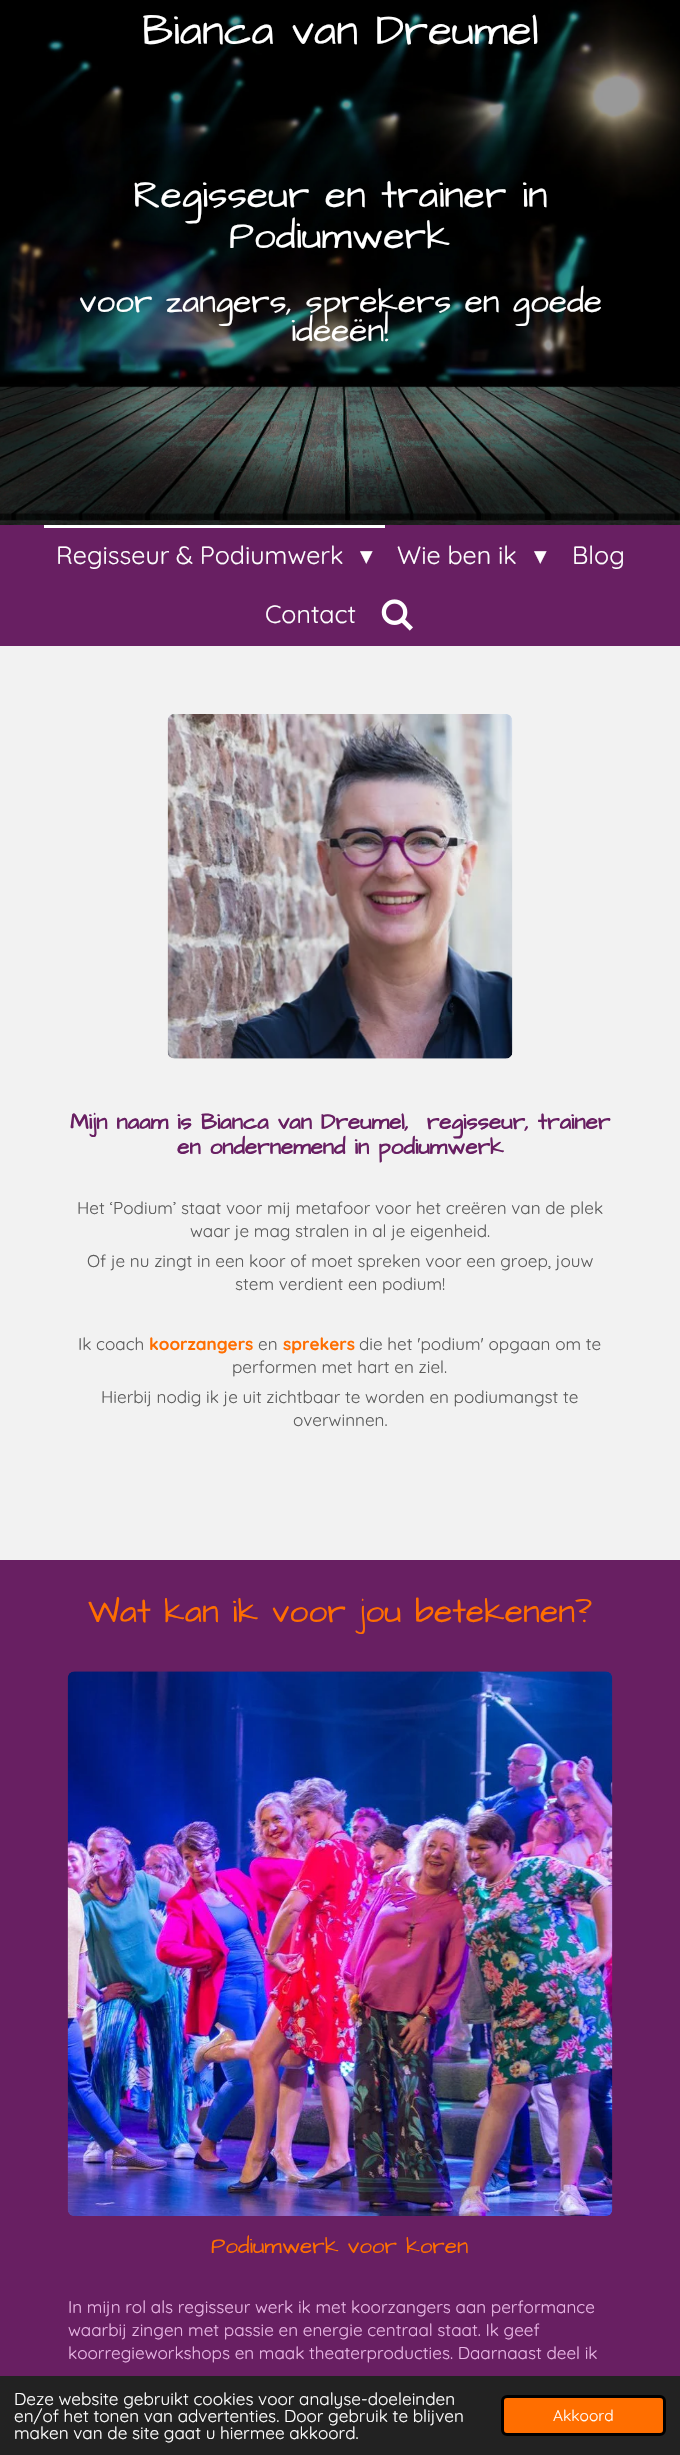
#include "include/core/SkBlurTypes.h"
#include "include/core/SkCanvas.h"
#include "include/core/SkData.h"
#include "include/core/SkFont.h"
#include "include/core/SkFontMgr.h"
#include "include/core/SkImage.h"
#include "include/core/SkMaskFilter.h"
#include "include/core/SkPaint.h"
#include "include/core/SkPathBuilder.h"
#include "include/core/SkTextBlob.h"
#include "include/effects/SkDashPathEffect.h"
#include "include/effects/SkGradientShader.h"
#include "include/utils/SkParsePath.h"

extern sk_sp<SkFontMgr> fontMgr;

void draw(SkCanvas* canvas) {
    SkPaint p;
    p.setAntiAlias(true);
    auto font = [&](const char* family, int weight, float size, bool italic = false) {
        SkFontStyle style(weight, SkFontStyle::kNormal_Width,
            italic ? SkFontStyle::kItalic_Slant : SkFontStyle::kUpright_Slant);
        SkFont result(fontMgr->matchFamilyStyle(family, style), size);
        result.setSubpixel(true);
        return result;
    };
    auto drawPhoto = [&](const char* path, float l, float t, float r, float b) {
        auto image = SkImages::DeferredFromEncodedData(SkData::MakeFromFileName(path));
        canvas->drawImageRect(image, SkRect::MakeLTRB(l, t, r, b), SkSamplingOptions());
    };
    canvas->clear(0xFF681F62);
    drawPhoto("media/1.png", 0, 0, 680, 525);
    auto font1 = font("Architects Daughter", 400, 43.75f);
    p.setColor(0xFFFFFFFF);
    canvas->drawString("Bianca van Dreumel", 142, 44, font1, p);
    auto font2 = font("Architects Daughter", 400, 39);
    canvas->drawString("Regisseur en trainer in", 133, 207, font2, p);
    canvas->drawString("Podiumwerk", 229, 248, font2, p);
    auto font3 = font("Architects Daughter", 400, 33.4f);
    canvas->drawString("voor zangers, sprekers en goede", 79, 312, font3, p);
    canvas->drawString("ideeën!", 291, 341, font3, p);
    canvas->drawRect(SkRect::MakeLTRB(44, 525, 385, 528), p);
    auto font4 = font("Quicksand", 400, 25);
    canvas->drawString("Regisseur & Podiumwerk", 56, 564, font4, p);
    auto font5 = font("DejaVu Sans", 400, 25);
    canvas->drawString("▾", 360, 564, font5, p);
    canvas->drawString("Wie ben ik", 397, 564, font4, p);
    canvas->drawString("▾", 534, 564, font5, p);
    canvas->drawString("Blog", 572, 564, font4, p);
    canvas->drawString("Contact", 265, 623, font4, p);
    drawPhoto("media/2.png", 381, 599, 413, 631);
    p.setColor(0xFFF2F2F2);
    canvas->drawRect(SkRect::MakeLTRB(0, 646, 680, 1560), p);
    drawPhoto("media/3.png", 167, 714, 513, 1059);
    auto font6 = font("Architects Daughter", 700, 22.5f);
    p.setColor(0xFF681F62);
    canvas->drawString("Mijn naam is Bianca van Dreumel,  regisseur, trainer", 70, 1129, font6, p);
    canvas->drawString("en ondernemend in podiumwerk", 177, 1154, font6, p);
    auto font7 = font("Quicksand", 400, 17.1f);
    p.setColor(0xFF5C5C5C);
    {
        const struct { const char* s; float x, y; } items[] = {
            {"Het ‘Podium’ staat voor mij metafoor voor het creëren van de plek", 77, 1214},
            {"waar je mag stralen in al je eigenheid.", 190, 1237},
            {"Of je nu zingt in een koor of moet spreken voor een groep, jouw", 87, 1267},
            {"stem verdient een podium!", 235, 1290},
            {"Ik coach", 78, 1350},
        };
        for (auto [s, x, y] : items) {
            canvas->drawString(s, x, y, font7, p);
        }
    }
    auto font8 = font("Quicksand", 700, 17.1f);
    p.setColor(0xFFFF6E00);
    canvas->drawString("koorzangers", 149, 1350, font8, p);
    p.setColor(0xFF5C5C5C);
    canvas->drawString("en", 258, 1350, font7, p);
    p.setColor(0xFFFF6E00);
    canvas->drawString("sprekers", 283, 1350, font8, p);
    p.setColor(0xFF5C5C5C);
    {
        const struct { const char* s; float x, y; } items[] = {
            {"die het 'podium' opgaan om te", 359, 1350},
            {"performen met hart en ziel.", 232, 1373},
            {"Hierbij nodig ik je uit zichtbaar te worden en podiumangst te", 101, 1403},
            {"overwinnen.", 293, 1426},
        };
        for (auto [s, x, y] : items) {
            canvas->drawString(s, x, y, font7, p);
        }
    }
    auto font9 = font("Architects Daughter", 400, 33.75f);
    p.setColor(0xFFFF6E00);
    canvas->drawString("Wat kan ik voor jou betekenen?", 88, 1622, font9, p);
    drawPhoto("media/4.png", 67, 1671, 613, 2216);
    auto font10 = font("Architects Daughter", 400, 22.5f);
    canvas->drawString("Podiumwerk voor koren", 211, 2253, font10, p);
    p.setColor(0xFFE9B6E5);
    {
        const struct { const char* s; float x, y; } items[] = {
            {"In mijn rol als regisseur werk ik met koorzangers aan performance", 68, 2313},
            {"waarbij zingen met passie en energie centraal staat. Ik geef", 68, 2336},
            {"koorregieworkshops en maak theaterproducties. Daarnaast deel ik", 68, 2359},
        };
        for (auto [s, x, y] : items) {
            canvas->drawString(s, x, y, font7, p);
        }
    }
    p.setColor(0xFF222222);
    canvas->drawRect(SkRect::MakeLTRB(0, 2376, 680, 2455), p);
    p.setColor(0xFFFFFFFF);
    {
        const struct { const char* s; float x, y; } items[] = {
            {"Deze website gebruikt cookies voor analyse-doeleinden", 14, 2405},
            {"en/of het tonen van advertenties. Door gebruik te blijven", 14, 2422},
            {"maken van de site gaat u hiermee akkoord.", 14, 2439},
        };
        for (auto [s, x, y] : items) {
            canvas->drawString(s, x, y, font7, p);
        }
    }
    p.setColor(0xFFFF6E00);
    canvas->drawRoundRect(SkRect::MakeLTRB(502.5f, 2396.5f, 664.5f, 2434.5f), 4.5f, 4.5f, p);
    p.setStyle(SkPaint::kStroke_Style);
    p.setStrokeWidth(3);
    p.setColor(0xFF000000);
    canvas->drawRoundRect(SkRect::MakeLTRB(502.5f, 2396.5f, 664.5f, 2434.5f), 4.5f, 4.5f, p);
    auto font11 = font("Quicksand", 400, 15.5f);
    p.setStyle(SkPaint::kFill_Style);
    p.setColor(0xFFFFFFFF);
    canvas->drawString("Akkoord", 553, 2421, font11, p);
}
